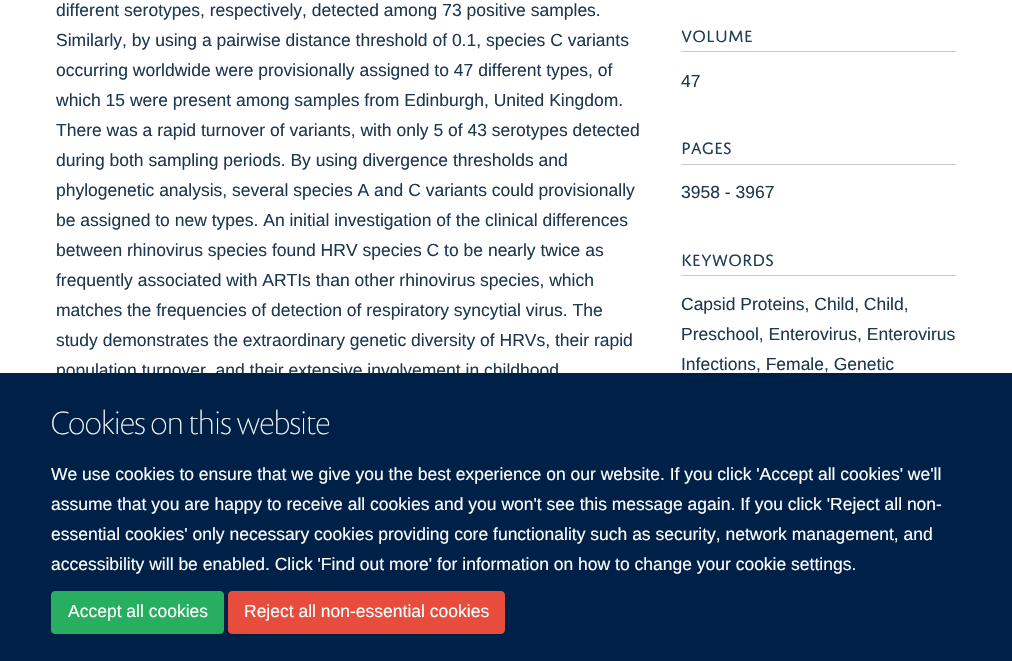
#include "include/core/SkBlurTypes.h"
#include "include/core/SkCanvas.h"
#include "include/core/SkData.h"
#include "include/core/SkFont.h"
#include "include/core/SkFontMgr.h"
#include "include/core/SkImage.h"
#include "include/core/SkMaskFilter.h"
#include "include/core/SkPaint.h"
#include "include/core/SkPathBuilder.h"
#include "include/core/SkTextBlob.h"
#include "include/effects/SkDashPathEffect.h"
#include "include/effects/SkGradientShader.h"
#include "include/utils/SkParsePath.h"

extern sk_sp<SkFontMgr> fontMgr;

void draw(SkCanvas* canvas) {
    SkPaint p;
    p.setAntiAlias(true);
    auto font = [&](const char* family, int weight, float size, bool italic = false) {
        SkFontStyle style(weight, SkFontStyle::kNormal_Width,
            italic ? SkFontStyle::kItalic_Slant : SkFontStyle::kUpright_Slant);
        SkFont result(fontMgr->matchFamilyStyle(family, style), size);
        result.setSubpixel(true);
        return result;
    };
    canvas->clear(0xFFFFFFFF);
    auto font1 = font("Liberation Sans", 400, 17.5f);
    p.setColor(0xFF1D3850);
    {
        const struct { const char* s; float x, y; } items[] = {
            {"different serotypes, respectively, detected among 73 positive samples.", 56, 16},
            {"Similarly, by using a pairwise distance threshold of 0.1, species C variants", 56, 46},
            {"occurring worldwide were provisionally assigned to 47 different types, of", 56, 76},
            {"which 15 were present among samples from Edinburgh, United Kingdom.", 56, 106},
            {"There was a rapid turnover of variants, with only 5 of 43 serotypes detected", 56, 136},
            {"during both sampling periods. By using divergence thresholds and", 56, 166},
            {"phylogenetic analysis, several species A and C variants could provisionally", 56, 196},
            {"be assigned to new types. An initial investigation of the clinical differences", 56, 226},
            {"between rhinovirus species found HRV species C to be nearly twice as", 56, 256},
            {"frequently associated with ARTIs than other rhinovirus species, which", 56, 286},
            {"matches the frequencies of detection of respiratory syncytial virus. The", 56, 316},
            {"study demonstrates the extraordinary genetic diversity of HRVs, their rapid", 56, 346},
            {"population turnover, and their extensive involvement in childhood", 56, 376},
        };
        for (auto [s, x, y] : items) {
            canvas->drawString(s, x, y, font1, p);
        }
    }
    p.setColor(0xFFC6CACF);
    canvas->drawRect(SkRect::MakeLTRB(681, 51, 956, 52), p);
    auto font2 = font("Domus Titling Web", 400, 17.5f);
    p.setColor(0xFF203E58);
    canvas->drawString("VOLUME", 681, 42, font2, p);
    p.setColor(0xFF1D3850);
    canvas->drawString("47", 681, 87, font1, p);
    p.setColor(0xFFC6CACF);
    canvas->drawRect(SkRect::MakeLTRB(681, 164, 956, 165), p);
    p.setColor(0xFF203E58);
    canvas->drawString("PAGES", 681, 154, font2, p);
    p.setColor(0xFF1D3850);
    canvas->drawString("3958 - 3967", 681, 198, font1, p);
    p.setColor(0xFFC6CACF);
    canvas->drawRect(SkRect::MakeLTRB(681, 275, 956, 276), p);
    p.setColor(0xFF203E58);
    canvas->drawString("KEYWORDS", 681, 266, font2, p);
    p.setColor(0xFF1D3850);
    {
        const struct { const char* s; float x, y; } items[] = {
            {"Capsid Proteins, Child, Child,", 681, 310},
            {"Preschool, Enterovirus, Enterovirus", 681, 340},
            {"Infections, Female, Genetic", 681, 370},
        };
        for (auto [s, x, y] : items) {
            canvas->drawString(s, x, y, font1, p);
        }
    }
    p.setColor(0xFF002147);
    canvas->drawRect(SkRect::MakeLTRB(0, 373, 1012, 661), p);
    auto font3 = font("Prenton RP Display", 100, 32.5f);
    p.setColor(0xFFFFFFFF);
    canvas->drawString("Cookies on this website", 51, 434, font3, p);
    {
        const struct { const char* s; float x, y; } items[] = {
            {"We use cookies to ensure that we give you the best experience on our website. If you click 'Accept all cookies' we'll", 51, 480},
            {"assume that you are happy to receive all cookies and you won't see this message again. If you click 'Reject all non-", 51, 510},
            {"essential cookies' only necessary cookies providing core functionality such as security, network management, and", 51, 540},
            {"accessibility will be enabled. Click 'Find out more' for information on how to change your cookie settings.", 51, 570},
        };
        for (auto [s, x, y] : items) {
            canvas->drawString(s, x, y, font1, p);
        }
    }
    p.setColor(0xFF27AE60);
    canvas->drawRoundRect(SkRect::MakeLTRB(51.5f, 591.5f, 223.5f, 633.5f), 3.5f, 3.5f, p);
    p.setStyle(SkPaint::kStroke_Style);
    p.setStrokeWidth(1);
    canvas->drawRoundRect(SkRect::MakeLTRB(51.5f, 591.5f, 223.5f, 633.5f), 3.5f, 3.5f, p);
    p.setStyle(SkPaint::kFill_Style);
    p.setColor(0xFFFFFFFF);
    canvas->drawString("Accept all cookies", 68, 617, font1, p);
    p.setColor(0xFFE74C3C);
    canvas->drawRoundRect(SkRect::MakeLTRB(228.5f, 591.5f, 504.5f, 633.5f), 3.5f, 3.5f, p);
    p.setStyle(SkPaint::kStroke_Style);
    canvas->drawRoundRect(SkRect::MakeLTRB(228.5f, 591.5f, 504.5f, 633.5f), 3.5f, 3.5f, p);
    p.setStyle(SkPaint::kFill_Style);
    p.setColor(0xFFFFFFFF);
    canvas->drawString("Reject all non-essential cookies", 244, 617, font1, p);
}
